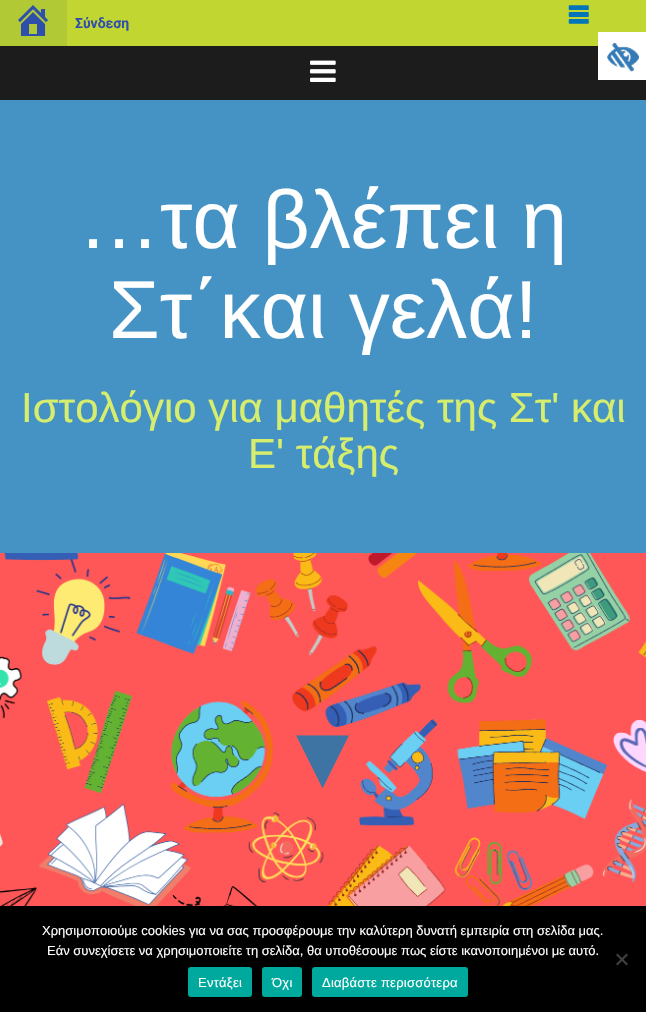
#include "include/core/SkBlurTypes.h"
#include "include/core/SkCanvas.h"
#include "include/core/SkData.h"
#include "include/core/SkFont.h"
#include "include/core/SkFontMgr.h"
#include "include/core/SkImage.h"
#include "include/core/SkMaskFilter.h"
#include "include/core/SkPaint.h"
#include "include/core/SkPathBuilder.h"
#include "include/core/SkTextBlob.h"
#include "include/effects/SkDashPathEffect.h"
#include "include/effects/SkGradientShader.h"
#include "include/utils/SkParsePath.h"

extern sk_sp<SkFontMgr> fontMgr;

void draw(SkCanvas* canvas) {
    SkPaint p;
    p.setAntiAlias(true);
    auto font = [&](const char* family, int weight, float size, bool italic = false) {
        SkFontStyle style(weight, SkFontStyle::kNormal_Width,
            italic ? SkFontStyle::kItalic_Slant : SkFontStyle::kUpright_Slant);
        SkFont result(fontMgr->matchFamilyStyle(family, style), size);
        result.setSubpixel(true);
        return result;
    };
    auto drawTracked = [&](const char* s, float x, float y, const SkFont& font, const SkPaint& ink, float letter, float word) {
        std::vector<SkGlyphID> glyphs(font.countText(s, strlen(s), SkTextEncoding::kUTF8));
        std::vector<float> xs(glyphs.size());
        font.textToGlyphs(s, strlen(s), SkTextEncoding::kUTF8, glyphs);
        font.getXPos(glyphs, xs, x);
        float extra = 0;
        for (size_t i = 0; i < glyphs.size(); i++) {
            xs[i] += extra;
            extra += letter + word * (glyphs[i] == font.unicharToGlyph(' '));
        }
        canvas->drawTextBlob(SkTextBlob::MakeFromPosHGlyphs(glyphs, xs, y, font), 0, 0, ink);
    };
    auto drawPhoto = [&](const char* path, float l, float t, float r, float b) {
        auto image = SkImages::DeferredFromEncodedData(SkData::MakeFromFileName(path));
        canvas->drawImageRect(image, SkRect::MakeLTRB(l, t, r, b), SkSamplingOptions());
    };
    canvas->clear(0xFF1C1C1C);
    p.setColor(0xFFC1D630);
    canvas->drawRect(SkRect::MakeLTRB(67, 0, 646, 46), p);
    p.setColor(0xFFB1C935);
    canvas->drawRect(SkRect::MakeLTRB(0, 0, 67, 46), p);
    drawPhoto("media/1.png", 18, 5, 48, 36);
    auto font1 = font("Roboto", 700, 14);
    p.setColor(0xFF2E50AA);
    canvas->drawString("Σύνδεση", 75, 28, font1, p);
    drawPhoto("media/2.png", 568, 5, 589, 24);
    p.setColor(0xFFFFFFFF);
    canvas->drawRect(SkRect::MakeLTRB(598, 32, 646, 80), p);
    drawPhoto("media/3.png", 607, 43, 639, 72);
    drawPhoto("media/4.png", 310, 60, 336, 82);
    p.setColor(0xFF4493C4);
    canvas->drawRect(SkRect::MakeLTRB(0, 100, 646, 553), p);
    auto font2 = font("Liberation Sans", 400, 82);
    p.setColor(0xFFFFFFFF);
    canvas->drawString("…τα βλέπει η", 78, 248, font2, p);
    canvas->drawString("Στ΄και γελά!", 109, 338, font2, p);
    auto font3 = font("Liberation Sans", 400, 42);
    p.setColor(0xFFD7ED6D);
    canvas->drawString("Ιστολόγιο για μαθητές της Στ' και", 21, 422, font3, p);
    canvas->drawString("Ε' τάξης", 248, 468, font3, p);
    drawPhoto("media/5.png", 0, 553, 646, 906);
    auto font4 = font("Liberation Sans", 400, 90);
    p.setColor(0xFF3E74A3);
    canvas->drawString("▼", 278, 787, font4, p);
    p.setColor(0xFF000000);
    canvas->drawRect(SkRect::MakeLTRB(0, 906, 646, 1012), p);
    auto font5 = font("Liberation Sans", 400, 13);
    p.setColor(0xFFFFFFFF);
    canvas->drawString("Χρησιμοποιούμε cookies για να σας προσφέρουμε την καλύτερη δυνατή εμπειρία στη σελίδα μας.", 42, 935, font5, p);
    canvas->drawString("Εάν συνεχίσετε να χρησιμοποιείτε τη σελίδα, θα υποθέσουμε πως είστε ικανοποιημένοι με αυτό.", 47, 955, font5, p);
    p.setColor(0xFF404040);
    canvas->drawPath(SkPathBuilder().moveTo(626.5f, 953.5f).lineTo(628, 955).lineTo(617.5f, 965.5f).lineTo(616, 964).close().detach(), p);
    canvas->drawPath(SkPathBuilder().moveTo(616, 955).lineTo(617.5f, 953.5f).lineTo(628, 964).lineTo(626.5f, 965.5f).close().detach(), p);
    p.setColor(0xFF00A99D);
    canvas->drawRoundRect(SkRect::MakeLTRB(188, 967, 252, 997), 3, 3, p);
    p.setColor(0xFFFFFFFF);
    drawTracked("Εντάξει", 198, 987, font5, p, 0.25f, 0);
    p.setColor(0xFF00A99D);
    canvas->drawRoundRect(SkRect::MakeLTRB(262, 967, 302, 997), 3, 3, p);
    p.setColor(0xFFFFFFFF);
    drawTracked("Όχι", 272, 987, font5, p, 0.25f, 0);
    p.setColor(0xFF00A99D);
    canvas->drawRoundRect(SkRect::MakeLTRB(312, 967, 468, 997), 3, 3, p);
    p.setColor(0xFFFFFFFF);
    drawTracked("Διαβάστε περισσότερα", 322, 987, font5, p, 0.25f, 0);
}
